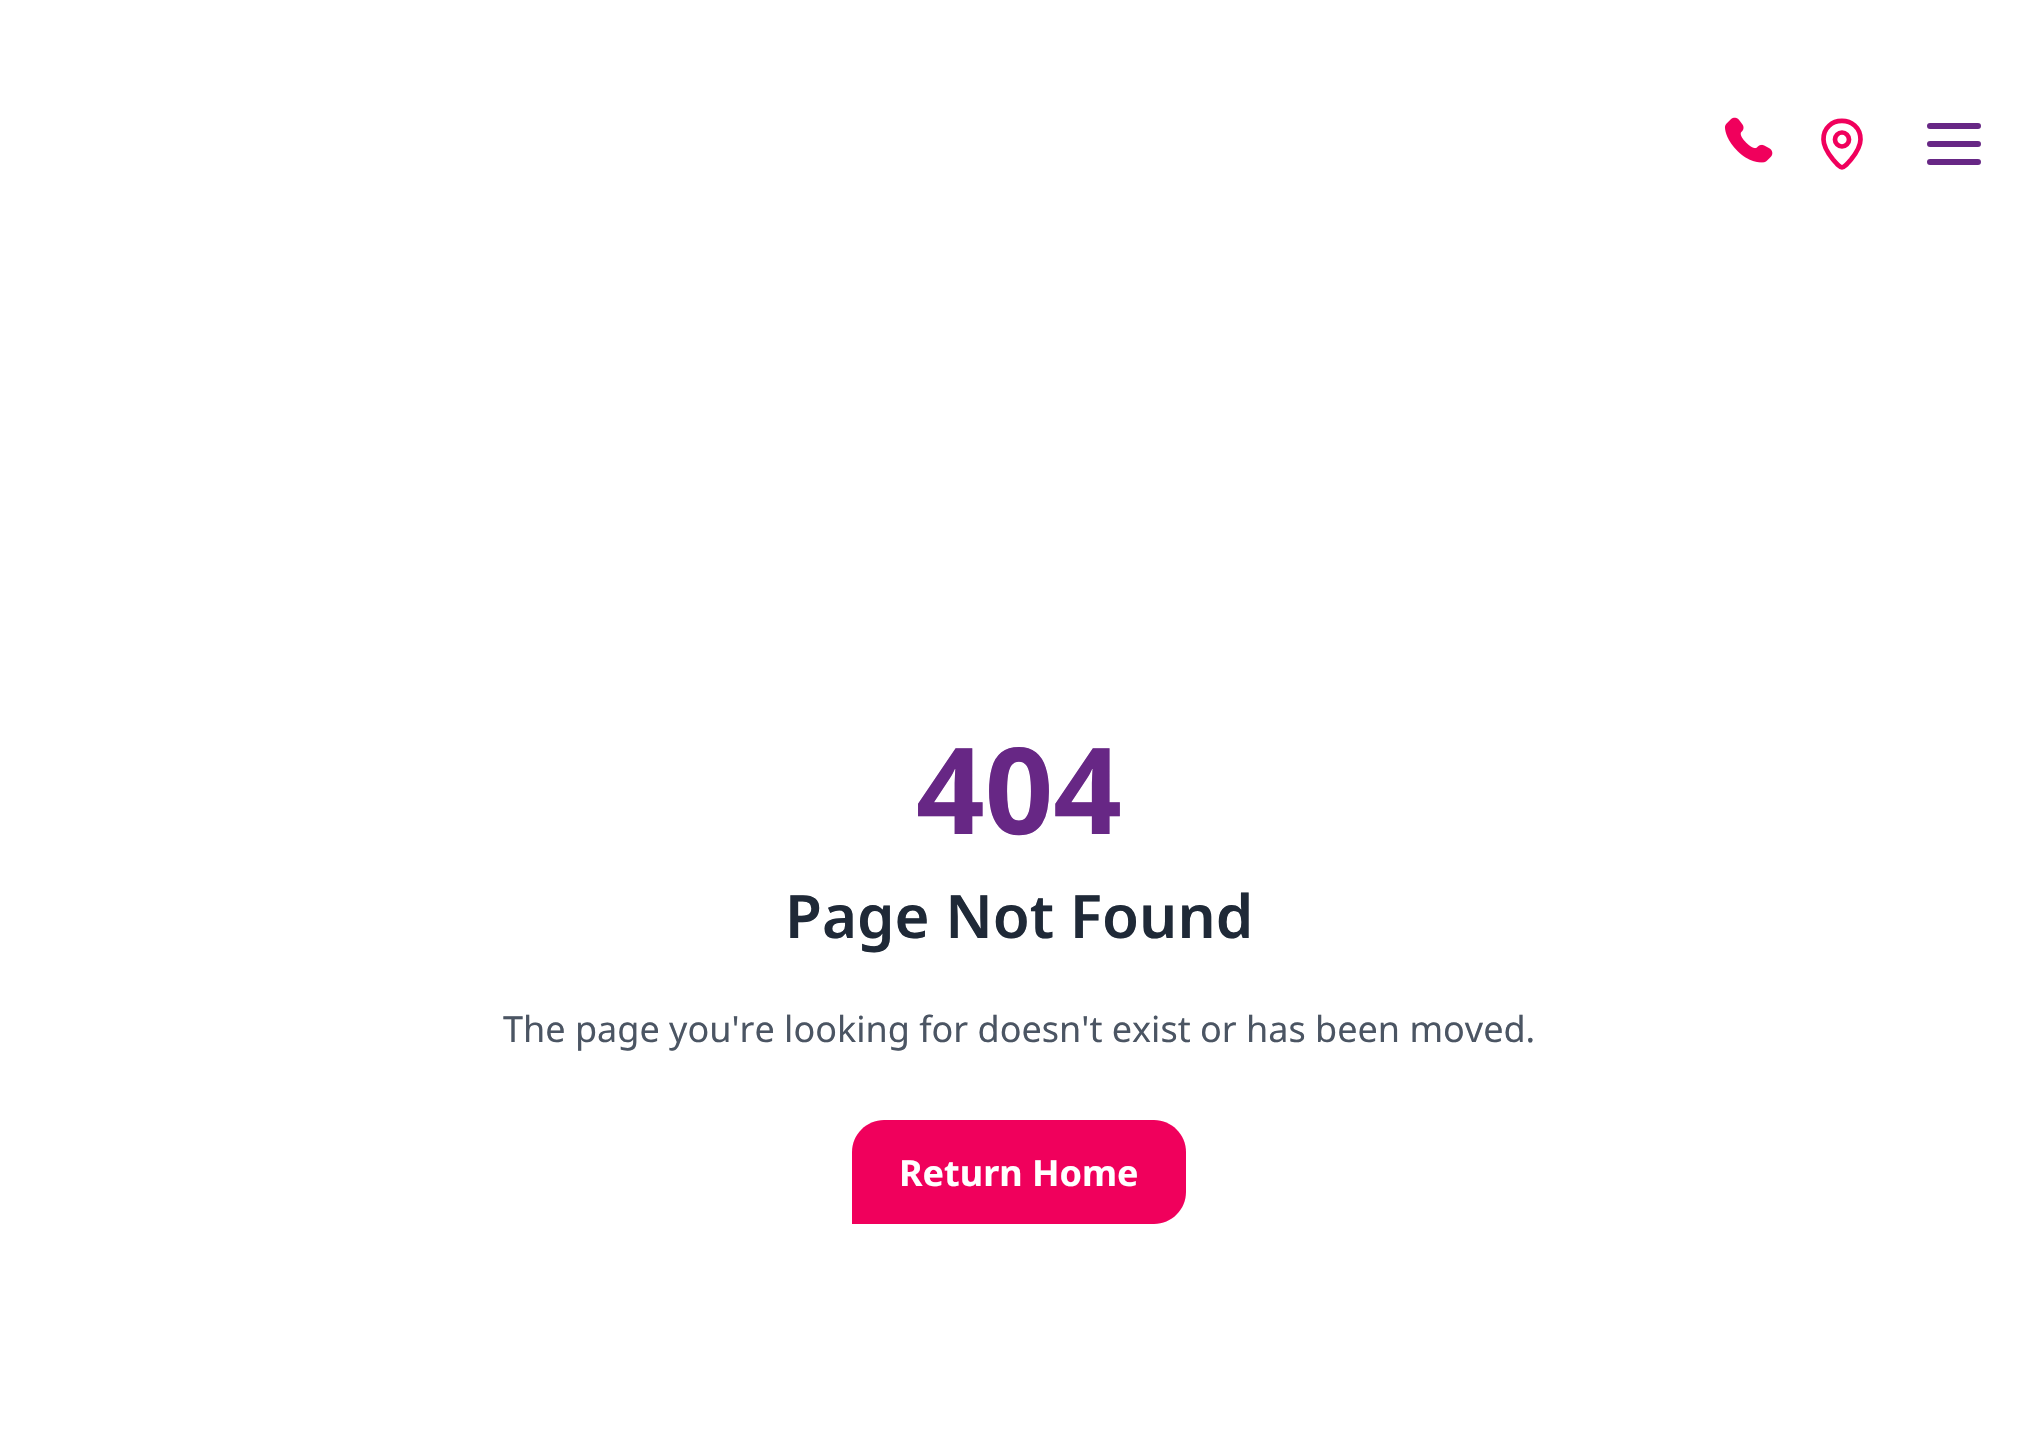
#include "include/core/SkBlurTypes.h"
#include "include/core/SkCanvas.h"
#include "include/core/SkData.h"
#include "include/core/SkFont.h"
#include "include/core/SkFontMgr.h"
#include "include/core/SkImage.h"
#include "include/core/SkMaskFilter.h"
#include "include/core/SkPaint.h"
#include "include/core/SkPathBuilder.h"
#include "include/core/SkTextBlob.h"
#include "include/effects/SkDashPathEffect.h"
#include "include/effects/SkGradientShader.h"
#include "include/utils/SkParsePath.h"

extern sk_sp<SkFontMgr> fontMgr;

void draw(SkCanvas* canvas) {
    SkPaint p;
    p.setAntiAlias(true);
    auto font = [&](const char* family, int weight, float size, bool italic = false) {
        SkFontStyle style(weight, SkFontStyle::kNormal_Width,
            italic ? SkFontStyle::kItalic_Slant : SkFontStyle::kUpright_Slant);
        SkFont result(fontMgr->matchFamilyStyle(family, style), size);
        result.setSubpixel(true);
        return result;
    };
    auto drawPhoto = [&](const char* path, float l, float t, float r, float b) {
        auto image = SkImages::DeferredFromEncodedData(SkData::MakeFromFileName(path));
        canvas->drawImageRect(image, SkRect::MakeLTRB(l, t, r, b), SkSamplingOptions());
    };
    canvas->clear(0xFFFFFFFF);
    drawPhoto("media/1.png", 1724, 117, 1773, 163);
    p.setStyle(SkPaint::kStroke_Style);
    p.setStrokeWidth(4.7f);
    p.setStrokeCap(SkPaint::kRound_Cap);
    p.setStrokeJoin(SkPaint::kRound_Join);
    p.setColor(0xFFF0005C);
    canvas->drawPath(SkPathBuilder().moveTo(1860.5f, 139.5f).cubicTo(1860.5f, 147, 1855.5f, 154, 1851, 159.5f).cubicTo(1842, 170, 1842, 170, 1833, 159.5f).cubicTo(1828.5f, 154, 1823.5f, 147, 1823.5f, 139.5f).cubicTo(1823, 115, 1860.5f, 114.5f, 1860.5f, 139.5f).detach(), p);
    p.setStrokeCap(SkPaint::kButt_Cap);
    p.setStrokeJoin(SkPaint::kMiter_Join);
    canvas->drawCircle(1842, 139.5f, 7, p);
    p.setStrokeWidth(6);
    p.setStrokeCap(SkPaint::kRound_Cap);
    p.setStrokeJoin(SkPaint::kRound_Join);
    p.setColor(0xFF672785);
    canvas->drawPath(SkPathBuilder().moveTo(1930, 126).lineTo(1978, 126).moveTo(1930, 144).lineTo(1978, 144).moveTo(1930, 162).lineTo(1978, 162).detach(), p);
    auto font1 = font("Noto Sans", 700, 120);
    p.setStyle(SkPaint::kFill_Style);
    canvas->drawString("404", 916, 834, font1, p);
    auto font2 = font("Noto Sans", 600, 60);
    p.setColor(0xFF1F2937);
    canvas->drawString("Page Not Found", 785, 938, font2, p);
    auto font3 = font("Noto Sans", 400, 36);
    p.setColor(0xFF4B5563);
    canvas->drawString("The page you're looking for doesn't exist or has been moved.", 503, 1042, font3, p);
    p.setColor(0xFFF0005C);
    canvas->drawPath(SkPathBuilder().moveTo(884, 1120).lineTo(1154, 1120).cubicTo(1171.5f, 1120, 1186, 1134.5f, 1186, 1152).lineTo(1186, 1192).cubicTo(1186, 1209.5f, 1171.5f, 1224, 1154, 1224).lineTo(852, 1224).lineTo(852, 1152).cubicTo(852, 1134.5f, 866.5f, 1120, 884, 1120).close().detach(), p);
    auto font4 = font("Noto Sans", 700, 36);
    p.setColor(0xFFFFFFFF);
    canvas->drawString("Return Home", 899, 1186, font4, p);
}
